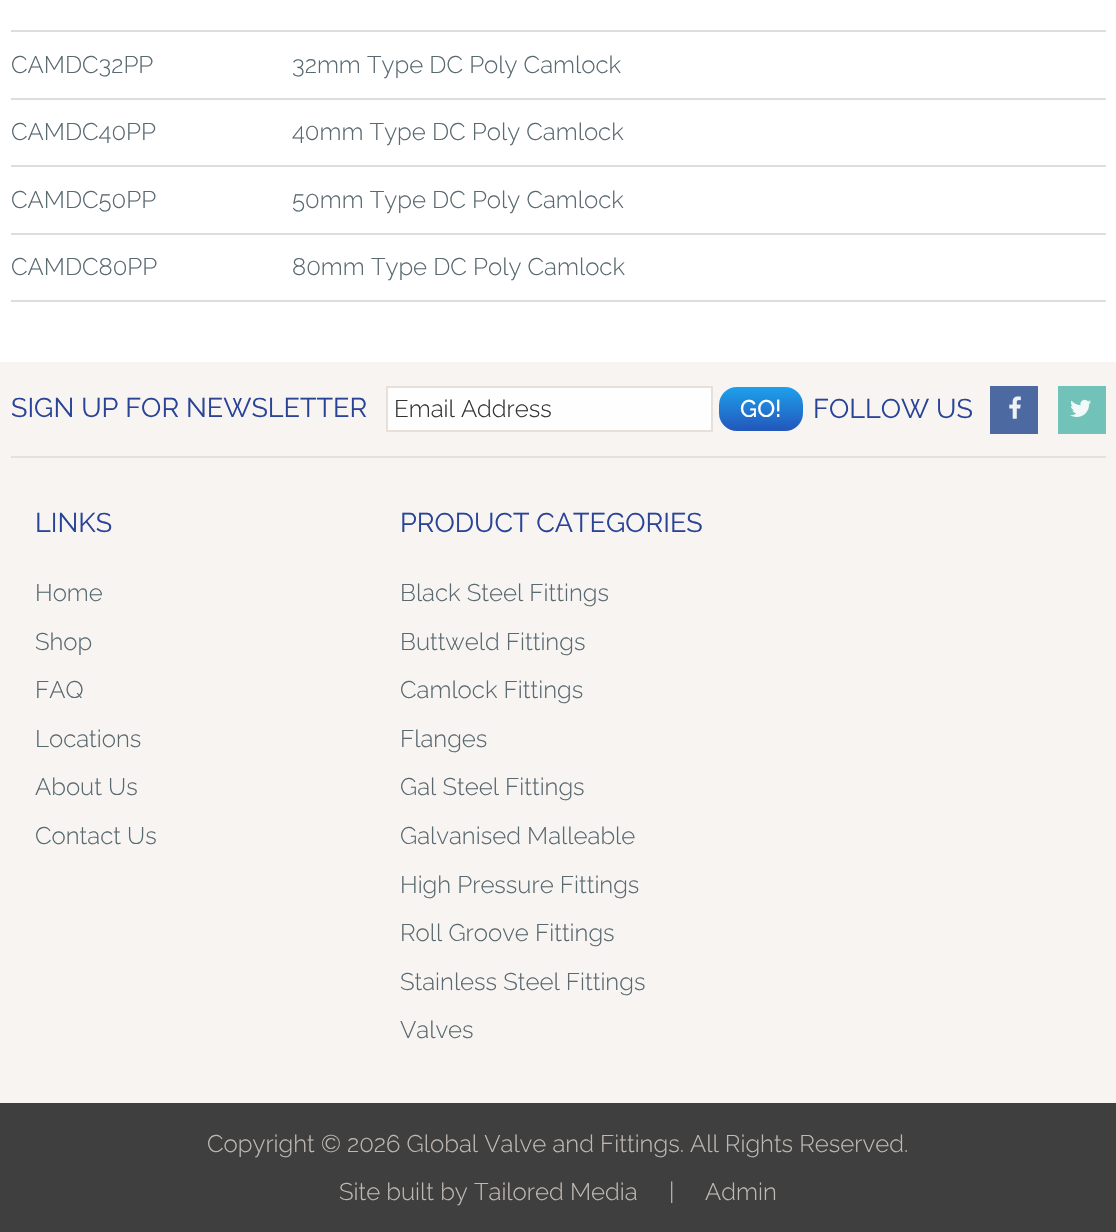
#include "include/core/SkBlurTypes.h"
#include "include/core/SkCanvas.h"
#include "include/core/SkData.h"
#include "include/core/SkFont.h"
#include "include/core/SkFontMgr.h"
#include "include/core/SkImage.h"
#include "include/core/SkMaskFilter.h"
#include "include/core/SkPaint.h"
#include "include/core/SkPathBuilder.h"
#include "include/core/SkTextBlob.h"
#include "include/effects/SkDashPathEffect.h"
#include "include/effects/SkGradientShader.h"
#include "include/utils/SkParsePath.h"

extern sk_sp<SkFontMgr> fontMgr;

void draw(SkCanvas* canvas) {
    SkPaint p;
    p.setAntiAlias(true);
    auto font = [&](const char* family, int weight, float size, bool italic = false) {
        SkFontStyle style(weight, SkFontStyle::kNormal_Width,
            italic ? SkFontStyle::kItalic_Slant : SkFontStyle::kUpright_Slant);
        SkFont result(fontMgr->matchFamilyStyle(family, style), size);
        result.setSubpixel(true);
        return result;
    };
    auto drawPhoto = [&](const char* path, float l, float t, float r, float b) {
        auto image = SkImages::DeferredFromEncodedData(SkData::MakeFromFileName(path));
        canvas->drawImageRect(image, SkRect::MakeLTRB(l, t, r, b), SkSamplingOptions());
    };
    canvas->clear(0xFFFFFFFF);
    p.setColor(0xFFDDDDDD);
    canvas->drawRect(SkRect::MakeLTRB(11, 300, 1106, 302), p);
    auto font1 = font("Raleway", 300, 24);
    p.setColor(0xFF596970);
    canvas->drawString("CAMDC32PP", 11, 73, font1, p);
    p.setColor(0xFFDDDDDD);
    canvas->drawRect(SkRect::MakeLTRB(11, 30, 1106, 32), p);
    p.setColor(0xFF596970);
    canvas->drawString("32mm Type DC Poly Camlock", 292, 73, font1, p);
    canvas->drawString("CAMDC40PP", 11, 140, font1, p);
    p.setColor(0xFFDDDDDD);
    canvas->drawRect(SkRect::MakeLTRB(11, 98, 1106, 100), p);
    p.setColor(0xFF596970);
    canvas->drawString("40mm Type DC Poly Camlock", 292, 140, font1, p);
    canvas->drawString("CAMDC50PP", 11, 208, font1, p);
    p.setColor(0xFFDDDDDD);
    canvas->drawRect(SkRect::MakeLTRB(11, 165, 1106, 167), p);
    p.setColor(0xFF596970);
    canvas->drawString("50mm Type DC Poly Camlock", 292, 208, font1, p);
    canvas->drawString("CAMDC80PP", 11, 275, font1, p);
    p.setColor(0xFFDDDDDD);
    canvas->drawRect(SkRect::MakeLTRB(11, 233, 1106, 235), p);
    p.setColor(0xFF596970);
    canvas->drawString("80mm Type DC Poly Camlock", 292, 275, font1, p);
    p.setColor(0xFFF7F4F2);
    canvas->drawRect(SkRect::MakeLTRB(0, 362, 1116, 1103), p);
    p.setColor(0xFFE8DFD9);
    canvas->drawRect(SkRect::MakeLTRB(11, 456, 1106, 458), p);
    auto font2 = font("Raleway", 400, 27);
    p.setColor(0xFF294397);
    canvas->drawString("SIGN UP FOR NEWSLETTER", 11, 417, font2, p);
    p.setColor(0xFFFEFEFE);
    canvas->drawRect(SkRect::MakeLTRB(387, 387, 712, 431), p);
    p.setStyle(SkPaint::kStroke_Style);
    p.setStrokeWidth(2);
    p.setColor(0xFFE8DFD9);
    canvas->drawRect(SkRect::MakeLTRB(387, 387, 712, 431), p);
    p.setStyle(SkPaint::kFill_Style);
    p.setColor(0xFF333333);
    canvas->drawString("Email Address", 394, 417, font1, p);
    {
        const SkColor colors[] = {0xFF1EA1EC, 0xFF2356BA};
        const float stops[] = {0, 1};
        const SkPoint ends[] = {{761, 387}, {761, 431}};
        p.setShader(SkGradientShader::MakeLinear(ends, colors, stops, 2, SkTileMode::kClamp));
        p.setAlpha(255);
    }
    canvas->drawRoundRect(SkRect::MakeLTRB(719, 387, 803, 431), 18, 18, p);
    auto font3 = font("Raleway", 500, 24);
    p.setShader(nullptr);
    p.setColor(0xFFFFFFFF);
    canvas->drawString("GO!", 740, 417, font3, p);
    p.setColor(0xFF294397);
    canvas->drawString("FOLLOW US", 813, 418, font2, p);
    p.setColor(0xFF4D69A2);
    canvas->drawRect(SkRect::MakeLTRB(990, 386, 1038, 434), p);
    drawPhoto("media/1.png", 1009, 396, 1021, 419);
    p.setColor(0xFF71C3B9);
    canvas->drawRect(SkRect::MakeLTRB(1058, 386, 1106, 434), p);
    drawPhoto("media/2.png", 1070, 399, 1091, 417);
    p.setColor(0xFF294397);
    canvas->drawString("LINKS", 35, 532, font2, p);
    p.setColor(0xFF596970);
    {
        const struct { const char* s; float x, y; } items[] = {
            {"Home", 35, 601},
            {"Shop", 35, 650},
            {"FAQ", 35, 698},
            {"Locations", 35, 747},
            {"About Us", 35, 795},
            {"Contact Us", 35, 844},
        };
        for (auto [s, x, y] : items) {
            canvas->drawString(s, x, y, font1, p);
        }
    }
    p.setColor(0xFF294397);
    canvas->drawString("PRODUCT CATEGORIES", 400, 532, font2, p);
    p.setColor(0xFF596970);
    {
        const struct { const char* s; float x, y; } items[] = {
            {"Black Steel Fittings", 400, 601},
            {"Buttweld Fittings", 400, 650},
            {"Camlock Fittings", 400, 698},
            {"Flanges", 400, 747},
            {"Gal Steel Fittings", 400, 795},
            {"Galvanised Malleable", 400, 844},
            {"High Pressure Fittings", 400, 893},
            {"Roll Groove Fittings", 400, 941},
            {"Stainless Steel Fittings", 400, 990},
            {"Valves", 400, 1038},
        };
        for (auto [s, x, y] : items) {
            canvas->drawString(s, x, y, font1, p);
        }
    }
    p.setColor(0xFF3F3F3F);
    canvas->drawRect(SkRect::MakeLTRB(0, 1103, 1116, 1232), p);
    p.setColor(0xFFC0B8B2);
    {
        const struct { const char* s; float x, y; } items[] = {
            {"Copyright © 2026 Global Valve and Fittings. All Rights Reserved.", 207, 1152},
            {"Site built by Tailored Media", 339, 1200},
            {"|", 669, 1200},
            {"Admin", 705, 1200},
        };
        for (auto [s, x, y] : items) {
            canvas->drawString(s, x, y, font1, p);
        }
    }
}
